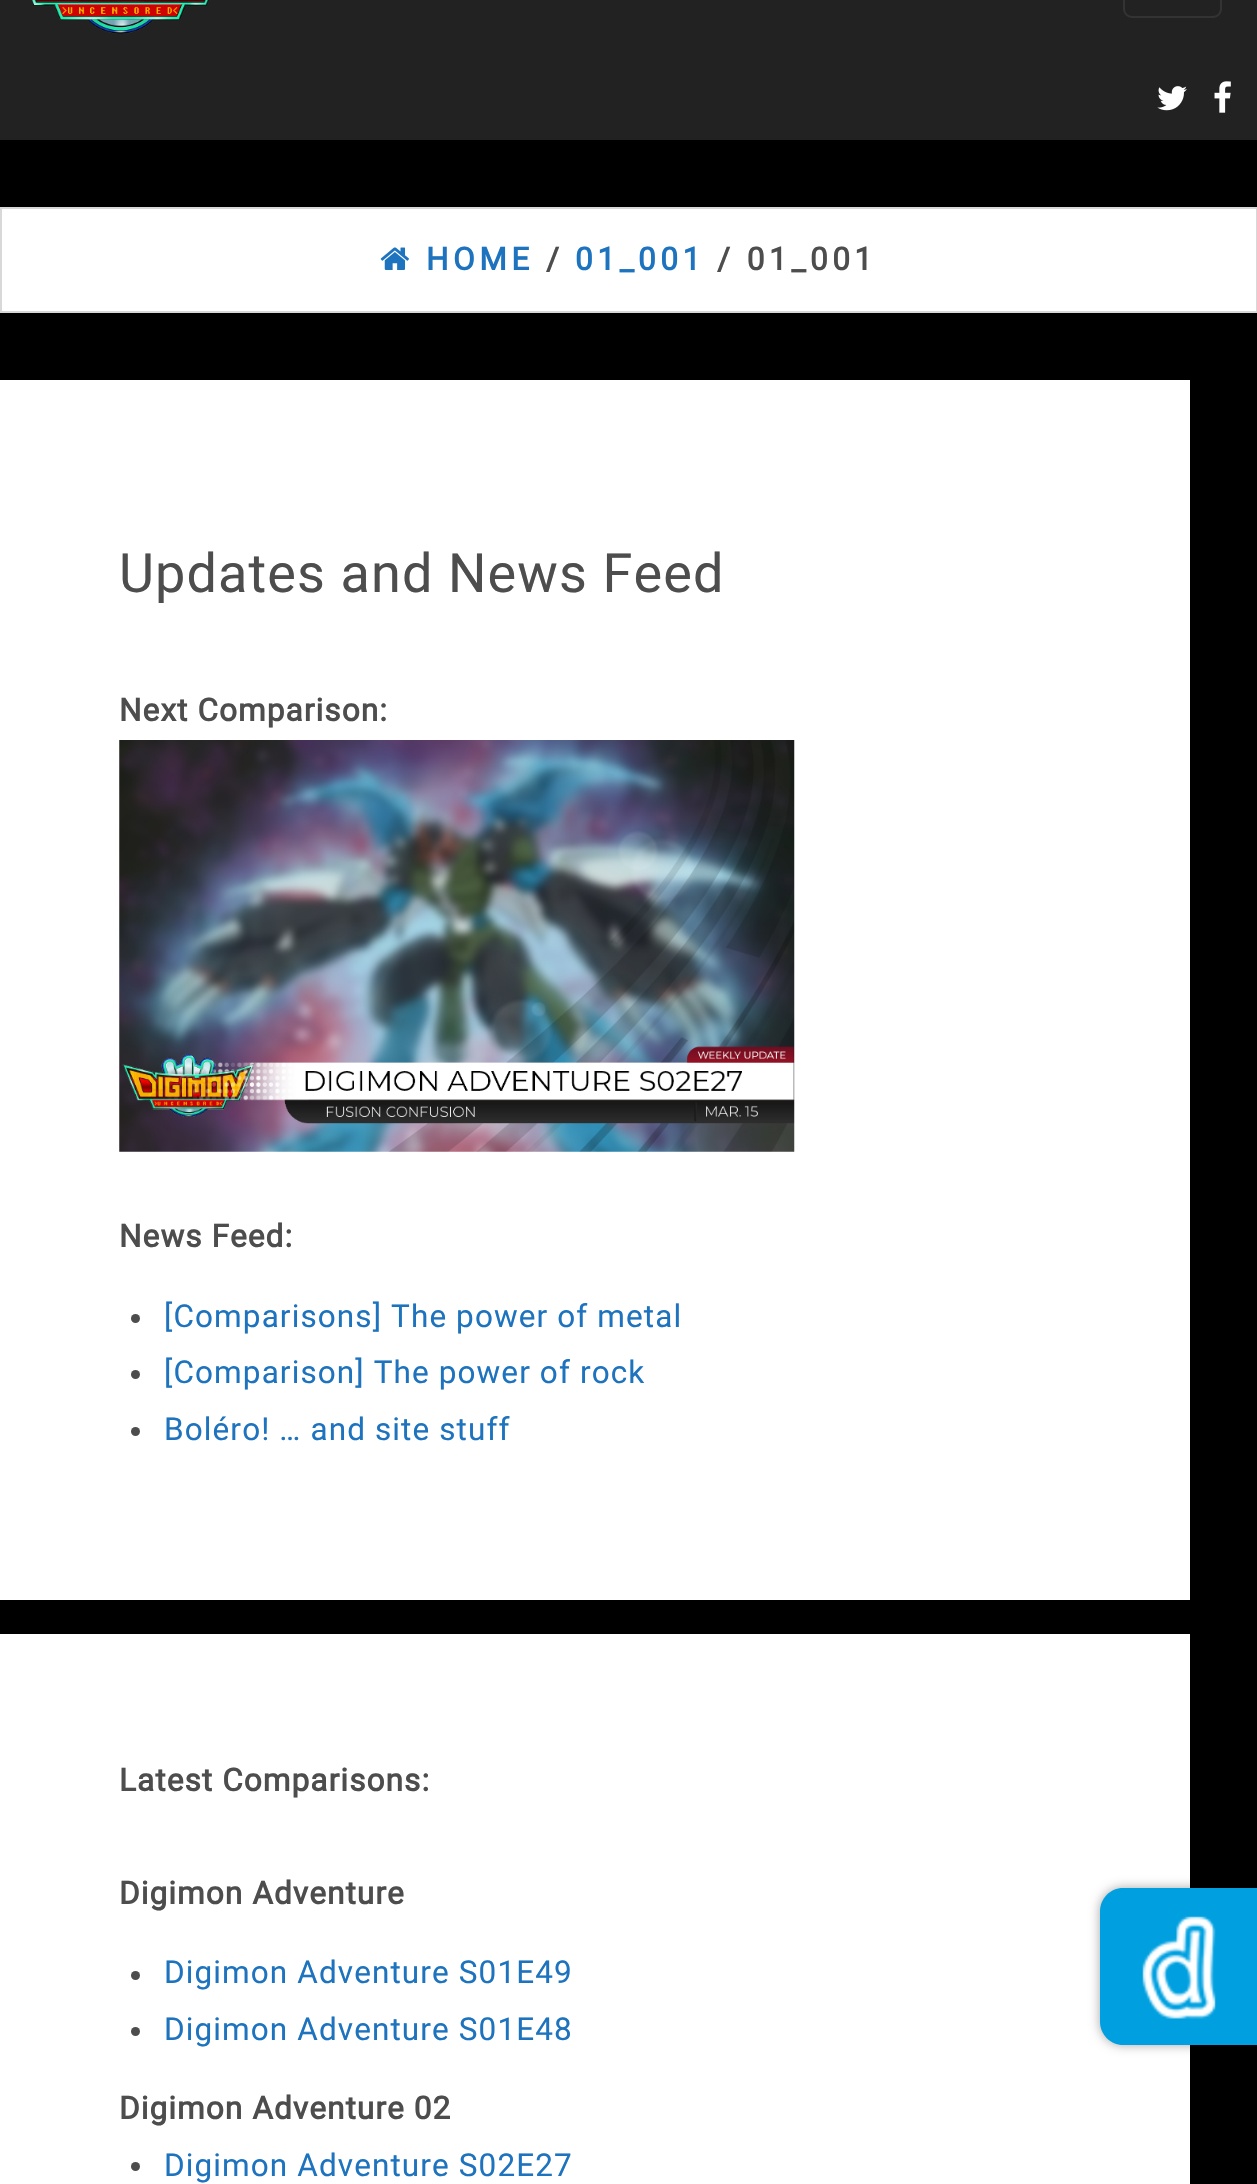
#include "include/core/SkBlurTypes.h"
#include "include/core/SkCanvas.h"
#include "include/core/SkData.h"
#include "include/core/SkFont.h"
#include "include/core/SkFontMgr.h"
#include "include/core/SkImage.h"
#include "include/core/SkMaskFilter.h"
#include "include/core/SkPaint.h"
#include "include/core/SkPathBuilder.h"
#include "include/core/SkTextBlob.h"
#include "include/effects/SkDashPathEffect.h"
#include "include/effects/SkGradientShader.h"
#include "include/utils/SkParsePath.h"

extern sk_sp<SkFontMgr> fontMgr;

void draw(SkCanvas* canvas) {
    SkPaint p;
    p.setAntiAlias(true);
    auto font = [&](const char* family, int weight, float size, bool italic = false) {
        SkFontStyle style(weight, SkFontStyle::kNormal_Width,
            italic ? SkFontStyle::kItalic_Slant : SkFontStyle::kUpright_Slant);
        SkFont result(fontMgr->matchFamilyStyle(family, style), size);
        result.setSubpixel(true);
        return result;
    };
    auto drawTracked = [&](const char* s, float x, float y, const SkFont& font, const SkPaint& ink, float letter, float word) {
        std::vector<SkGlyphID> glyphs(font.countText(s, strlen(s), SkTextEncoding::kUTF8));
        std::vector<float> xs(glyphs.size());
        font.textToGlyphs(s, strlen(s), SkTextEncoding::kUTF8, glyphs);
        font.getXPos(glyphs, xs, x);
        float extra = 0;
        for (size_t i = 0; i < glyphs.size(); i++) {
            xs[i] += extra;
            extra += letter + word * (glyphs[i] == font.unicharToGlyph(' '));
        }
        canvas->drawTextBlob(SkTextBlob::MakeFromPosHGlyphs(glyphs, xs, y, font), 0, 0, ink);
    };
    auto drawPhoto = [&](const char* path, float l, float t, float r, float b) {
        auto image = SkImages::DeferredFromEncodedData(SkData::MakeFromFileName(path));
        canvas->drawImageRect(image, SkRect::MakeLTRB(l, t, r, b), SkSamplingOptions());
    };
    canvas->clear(0xFF000000);
    p.setColor(0xFF222222);
    canvas->drawRect(SkRect::MakeLTRB(0, 0, 1257, 140), p);
    drawPhoto("media/1.png", 32, 0, 210, 34);
    p.setStyle(SkPaint::kStroke_Style);
    p.setStrokeWidth(2);
    p.setColor(0xFF333333);
    canvas->drawRoundRect(SkRect::MakeLTRB(1124, -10, 1221, 17), 8, 8, p);
    drawPhoto("media/2.png", 1157, 86, 1187, 111);
    drawPhoto("media/3.png", 1214, 81, 1231, 113);
    p.setStyle(SkPaint::kFill_Style);
    p.setColor(0xFFFFFFFF);
    canvas->drawRect(SkRect::MakeLTRB(1, 208, 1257, 312), p);
    p.setStyle(SkPaint::kStroke_Style);
    p.setColor(0xFFD8D8D8);
    canvas->drawRect(SkRect::MakeLTRB(1, 208, 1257, 312), p);
    drawPhoto("media/4.png", 380, 247, 409, 270);
    auto font1 = font("Roboto", 700, 31.5f);
    p.setStyle(SkPaint::kFill_Style);
    p.setColor(0xFF1E73BE);
    drawTracked("HOME", 426, 270, font1, p, 4.5f, 0);
    p.setColor(0xFF4D4D4D);
    drawTracked("/", 546, 270, font1, p, 4.5f, 0);
    p.setColor(0xFF1E73BE);
    drawTracked("01_001", 575, 270, font1, p, 4.5f, 0);
    p.setColor(0xFF4D4D4D);
    drawTracked("/ 01_001", 717, 270, font1, p, 4.5f, 0);
    p.setColor(0xFFFFFFFF);
    canvas->drawRect(SkRect::MakeLTRB(0, 380, 1190, 1600), p);
    auto font2 = font("Roboto", 400, 54);
    p.setColor(0xFF4D4D4D);
    drawTracked("Updates and News Feed", 119, 592, font2, p, 1.1f, 0);
    drawTracked("Next Comparison:", 119, 721, font1, p, 1.1f, 0);
    drawPhoto("media/5.png", 119, 740, 795, 1152);
    drawTracked("News Feed:", 119, 1247, font1, p, 1.1f, 0);
    canvas->drawCircle(135.5f, 1318.5f, 4.5f, p);
    auto font3 = font("Roboto", 400, 31.5f);
    p.setColor(0xFF1E73BE);
    drawTracked("[Comparisons] The power of metal", 164, 1327, font3, p, 1.1f, 0);
    p.setColor(0xFF4D4D4D);
    canvas->drawCircle(135.5f, 1374.5f, 4.5f, p);
    p.setColor(0xFF1E73BE);
    drawTracked("[Comparison] The power of rock", 164, 1383, font3, p, 1.1f, 0);
    p.setColor(0xFF4D4D4D);
    canvas->drawCircle(135.5f, 1431.5f, 4.5f, p);
    p.setColor(0xFF1E73BE);
    drawTracked("Boléro! … and site stuff", 164, 1440, font3, p, 1.1f, 0);
    p.setColor(0xFFFFFFFF);
    canvas->drawRect(SkRect::MakeLTRB(0, 1634, 1190, 2184), p);
    p.setColor(0xFF4D4D4D);
    drawTracked("Latest Comparisons:", 119, 1791, font1, p, 1.1f, 0);
    drawTracked("Digimon Adventure", 119, 1904, font1, p, 1.1f, 0);
    canvas->drawCircle(135.5f, 1975.5f, 4.5f, p);
    p.setColor(0xFF1E73BE);
    drawTracked("Digimon Adventure S01E49", 164, 1983, font3, p, 1.1f, 0);
    p.setColor(0xFF4D4D4D);
    canvas->drawCircle(135.5f, 2031.5f, 4.5f, p);
    p.setColor(0xFF1E73BE);
    drawTracked("Digimon Adventure S01E48", 164, 2040, font3, p, 1.1f, 0);
    p.setColor(0xFF4D4D4D);
    drawTracked("Digimon Adventure 02", 119, 2119, font1, p, 1.1f, 0);
    canvas->drawCircle(135.5f, 2166.5f, 4.5f, p);
    p.setColor(0xFF1E73BE);
    drawTracked("Digimon Adventure S02E27", 164, 2176, font3, p, 1.1f, 0);
    p.setColor(0x59000000);
    p.setMaskFilter(SkMaskFilter::MakeBlur(kNormal_SkBlurStyle, 5.5f));
    canvas->drawRoundRect(SkRect::MakeLTRB(1100, 1888, 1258, 2045), 23, 23, p);
    p.setMaskFilter(nullptr);
    p.setColor(0xFF00A0E0);
    canvas->drawPath(SkPathBuilder().moveTo(1123, 1888).lineTo(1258, 1888).lineTo(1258, 2045).lineTo(1123, 2045).cubicTo(1110.5f, 2045, 1100, 2034.5f, 1100, 2022).lineTo(1100, 1911).cubicTo(1100, 1898.5f, 1110.5f, 1888, 1123, 1888).close().detach(), p);
    drawPhoto("media/6.png", 1142, 1916, 1216, 2019);
}
